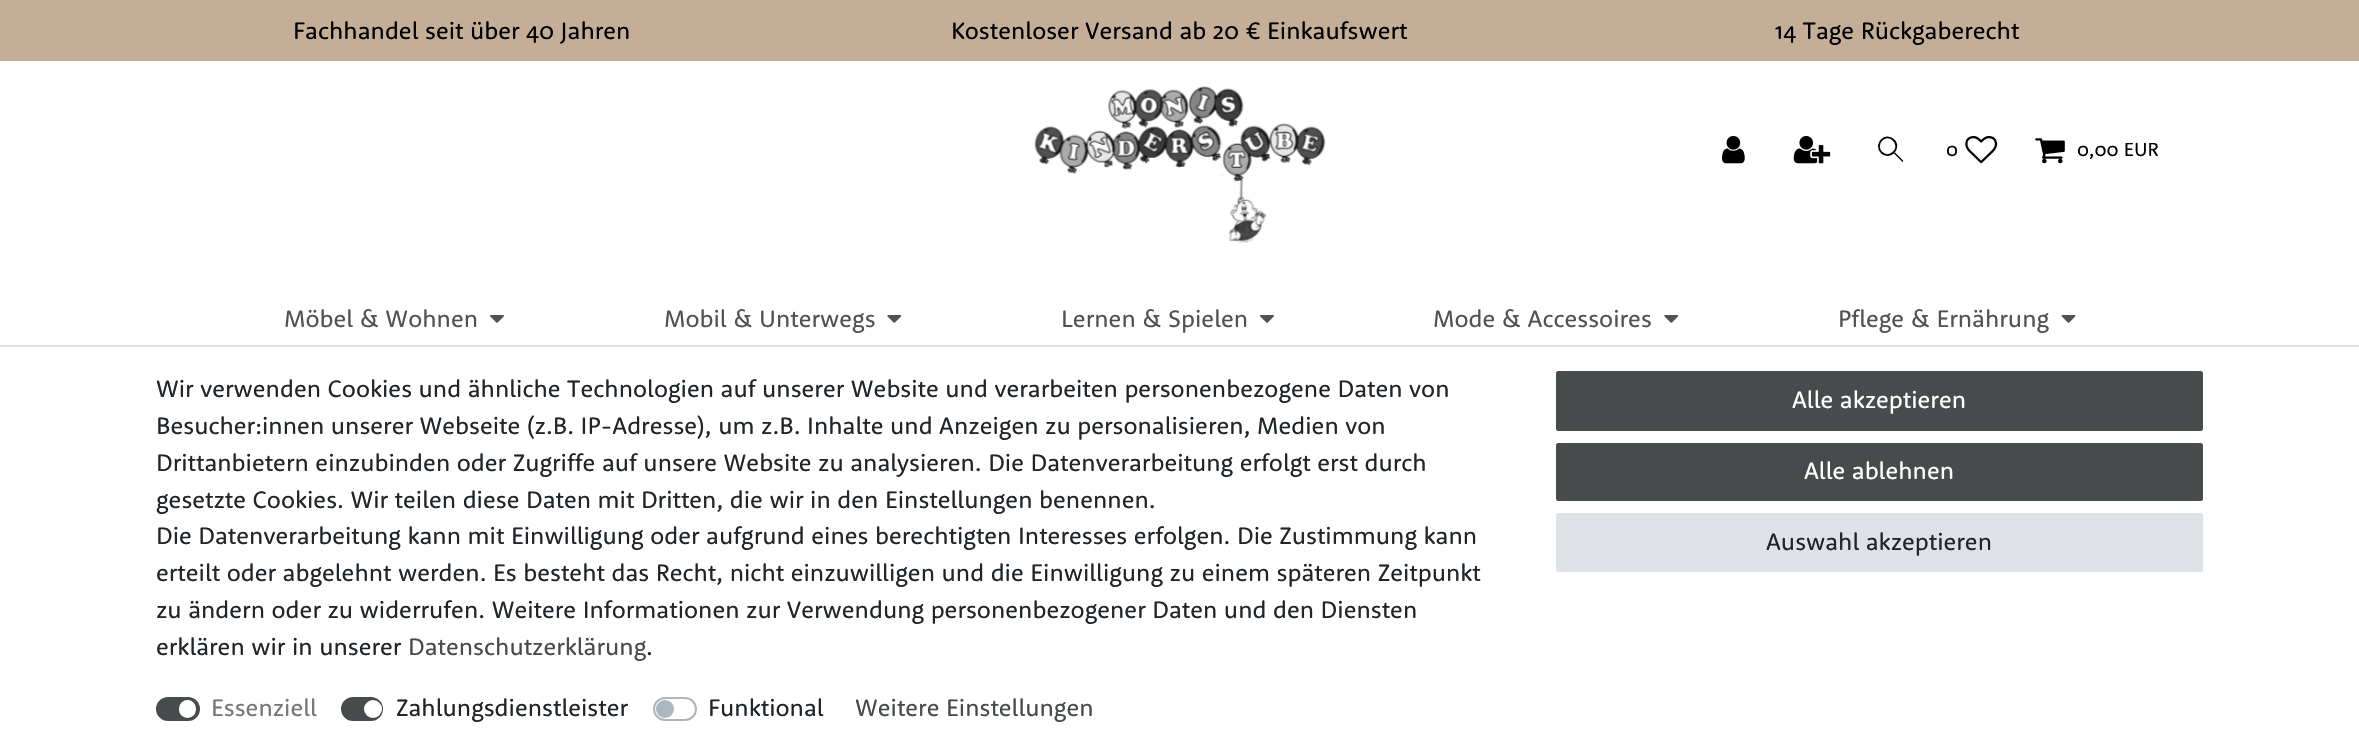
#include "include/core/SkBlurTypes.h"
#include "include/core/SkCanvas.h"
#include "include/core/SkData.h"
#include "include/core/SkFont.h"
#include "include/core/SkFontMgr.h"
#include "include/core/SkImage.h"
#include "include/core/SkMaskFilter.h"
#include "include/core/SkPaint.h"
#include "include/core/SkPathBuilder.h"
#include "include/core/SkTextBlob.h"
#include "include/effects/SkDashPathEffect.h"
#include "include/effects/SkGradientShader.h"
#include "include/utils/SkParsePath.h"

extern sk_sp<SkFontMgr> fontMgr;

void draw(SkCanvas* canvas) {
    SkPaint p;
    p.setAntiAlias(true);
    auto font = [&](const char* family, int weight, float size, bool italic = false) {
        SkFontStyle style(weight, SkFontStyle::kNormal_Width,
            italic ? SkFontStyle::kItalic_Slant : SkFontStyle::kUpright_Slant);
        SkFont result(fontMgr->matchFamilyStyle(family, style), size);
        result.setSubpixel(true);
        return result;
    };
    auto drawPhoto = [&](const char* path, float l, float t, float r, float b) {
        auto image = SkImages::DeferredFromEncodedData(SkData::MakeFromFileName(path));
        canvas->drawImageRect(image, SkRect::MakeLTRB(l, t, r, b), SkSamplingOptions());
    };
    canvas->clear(0xFFFFFFFF);
    p.setColor(0xFFC4AE97);
    canvas->drawRect(SkRect::MakeLTRB(0, 0, 2359, 61), p);
    auto font1 = font("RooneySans", 400, 24.5f);
    p.setColor(0xFF000000);
    {
        const struct { const char* s; float x, y; } items[] = {
            {"Fachhandel seit über 40 Jahren", 293, 39},
            {"Kostenloser Versand ab 20 € Einkaufswert", 951, 39},
            {"14 Tage Rückgaberecht", 1775, 39},
        };
        for (auto [s, x, y] : items) {
            canvas->drawString(s, x, y, font1, p);
        }
    }
    drawPhoto("media/1.png", 1034, 86, 1326, 244);
    drawPhoto("media/2.png", 1722, 136, 1745, 164);
    drawPhoto("media/3.png", 1793, 136, 1831, 164);
    canvas->drawPath(SkPathBuilder().moveTo(1902, 161.5f).lineTo(1884.5f, 144).lineTo(1884.5f, 143.5f).cubicTo(1884.5f, 143, 1885, 142.5f, 1885.5f, 143).lineTo(1903, 160.5f).cubicTo(1903.5f, 161.5f, 1902.5f, 162.5f, 1902, 161.5f).close().detach(), p);
    p.setColor(0xFFFFFFFF);
    canvas->drawPath(SkPathBuilder().moveTo(1880.5f, 153).cubicTo(1872, 144, 1885.5f, 130.5f, 1894.5f, 139.5f).cubicTo(1903.5f, 148.5f, 1889.5f, 162, 1880.5f, 153).close().detach(), p);
    p.setStyle(SkPaint::kStroke_Style);
    p.setStrokeWidth(1.8f);
    p.setColor(0xFF000000);
    canvas->drawPath(SkPathBuilder().moveTo(1881.5f, 152.5f).cubicTo(1873.5f, 144, 1885.5f, 132, 1893.5f, 140).cubicTo(1902, 148, 1889.5f, 160.5f, 1881.5f, 152.5f).close().detach(), p);
    auto font2 = font("RooneySans", 400, 19.5f);
    p.setStyle(SkPaint::kFill_Style);
    canvas->drawString("0", 1946, 156, font2, p);
    drawPhoto("media/4.png", 1965, 136, 1998, 164);
    drawPhoto("media/5.png", 2035, 138, 2065, 164);
    canvas->drawString("0,00 EUR", 2077, 156, font2, p);
    p.setColor(0xFF525252);
    canvas->drawString("Möbel & Wohnen", 284, 327, font1, p);
    drawPhoto("media/6.png", 490, 315, 504, 323);
    canvas->drawString("Mobil & Unterwegs", 664, 327, font1, p);
    drawPhoto("media/7.png", 887, 315, 902, 323);
    canvas->drawString("Lernen & Spielen", 1061, 327, font1, p);
    drawPhoto("media/6.png", 1260, 315, 1274, 323);
    canvas->drawString("Mode & Accessoires", 1433, 327, font1, p);
    drawPhoto("media/7.png", 1664, 315, 1679, 323);
    canvas->drawString("Pflege & Ernährung", 1838, 327, font1, p);
    drawPhoto("media/8.png", 2061, 315, 2076, 323);
    p.setColor(0xFFDEE2E6);
    canvas->drawRect(SkRect::MakeLTRB(0, 345, 2359, 347), p);
    p.setColor(0xFF212529);
    {
        const struct { const char* s; float x, y; } items[] = {
            {"Wir verwenden Cookies und ähnliche Technologien auf unserer Website und verarbeiten personenbezogene Daten von", 156, 397},
            {"Besucher:innen unserer Webseite (z.B. IP-Adresse), um z.B. Inhalte und Anzeigen zu personalisieren, Medien von", 156, 434},
            {"Drittanbietern einzubinden oder Zugriffe auf unsere Website zu analysieren. Die Datenverarbeitung erfolgt erst durch", 156, 471},
            {"gesetzte Cookies. Wir teilen diese Daten mit Dritten, die wir in den Einstellungen benennen.", 156, 508},
            {"Die Datenverarbeitung kann mit Einwilligung oder aufgrund eines berechtigten Interesses erfolgen. Die Zustimmung kann", 156, 544},
            {"erteilt oder abgelehnt werden. Es besteht das Recht, nicht einzuwilligen und die Einwilligung zu einem späteren Zeitpunkt", 156, 581},
            {"zu ändern oder zu widerrufen. Weitere Informationen zur Verwendung personenbezogener Daten und den Diensten", 156, 618},
            {"erklären wir in unserer", 156, 655},
        };
        for (auto [s, x, y] : items) {
            canvas->drawString(s, x, y, font1, p);
        }
    }
    p.setColor(0xFF484B4B);
    canvas->drawString("Datenschutzerklärung", 408, 655, font1, p);
    p.setColor(0xFF212529);
    canvas->drawString(".", 646, 655, font1, p);
    p.setColor(0xFF484B4B);
    canvas->drawRoundRect(SkRect::MakeLTRB(157, 698, 199, 720), 11, 11, p);
    p.setStyle(SkPaint::kStroke_Style);
    p.setStrokeWidth(2);
    canvas->drawRoundRect(SkRect::MakeLTRB(157, 698, 199, 720), 11, 11, p);
    p.setStyle(SkPaint::kFill_Style);
    p.setColor(0xFF767676);
    canvas->drawString("Essenziell", 211, 716, font1, p);
    p.setColor(0xFFFFFFFF);
    canvas->drawRoundRect(SkRect::MakeLTRB(179, 700, 196, 718), 8.5f, 8.5f, p);
    p.setColor(0xFF484B4B);
    canvas->drawRoundRect(SkRect::MakeLTRB(342, 698, 382, 720), 11, 11, p);
    p.setStyle(SkPaint::kStroke_Style);
    canvas->drawRoundRect(SkRect::MakeLTRB(342, 698, 382, 720), 11, 11, p);
    p.setStyle(SkPaint::kFill_Style);
    p.setColor(0xFF212529);
    canvas->drawString("Zahlungsdienstleister", 396, 716, font1, p);
    p.setColor(0xFFFFFFFF);
    canvas->drawCircle(373, 709, 9, p);
    p.setStyle(SkPaint::kStroke_Style);
    p.setColor(0xFFADB5BD);
    canvas->drawRoundRect(SkRect::MakeLTRB(654, 698, 696, 720), 11, 11, p);
    p.setStyle(SkPaint::kFill_Style);
    p.setColor(0xFF212529);
    canvas->drawString("Funktional", 708, 716, font1, p);
    p.setColor(0xFFADB5BD);
    canvas->drawCircle(665, 709, 9, p);
    p.setColor(0xFF484B4B);
    canvas->drawString("Weitere Einstellungen", 855, 716, font1, p);
    canvas->drawRoundRect(SkRect::MakeLTRB(1557, 372, 2202, 430), 1.5f, 1.5f, p);
    p.setStyle(SkPaint::kStroke_Style);
    canvas->drawRoundRect(SkRect::MakeLTRB(1557, 372, 2202, 430), 1.5f, 1.5f, p);
    p.setStyle(SkPaint::kFill_Style);
    p.setColor(0xFFFFFFFF);
    canvas->drawString("Alle akzeptieren", 1792, 408, font1, p);
    p.setColor(0xFF484B4B);
    canvas->drawRoundRect(SkRect::MakeLTRB(1557, 444, 2202, 500), 1.5f, 1.5f, p);
    p.setStyle(SkPaint::kStroke_Style);
    canvas->drawRoundRect(SkRect::MakeLTRB(1557, 444, 2202, 500), 1.5f, 1.5f, p);
    p.setStyle(SkPaint::kFill_Style);
    p.setColor(0xFFFFFFFF);
    canvas->drawString("Alle ablehnen", 1804, 479, font1, p);
    p.setColor(0xFFDEE2E6);
    canvas->drawRoundRect(SkRect::MakeLTRB(1557, 514, 2202, 571), 1.5f, 1.5f, p);
    p.setStyle(SkPaint::kStroke_Style);
    canvas->drawRoundRect(SkRect::MakeLTRB(1557, 514, 2202, 571), 1.5f, 1.5f, p);
    p.setStyle(SkPaint::kFill_Style);
    p.setColor(0xFF212529);
    canvas->drawString("Auswahl akzeptieren", 1766, 550, font1, p);
}
